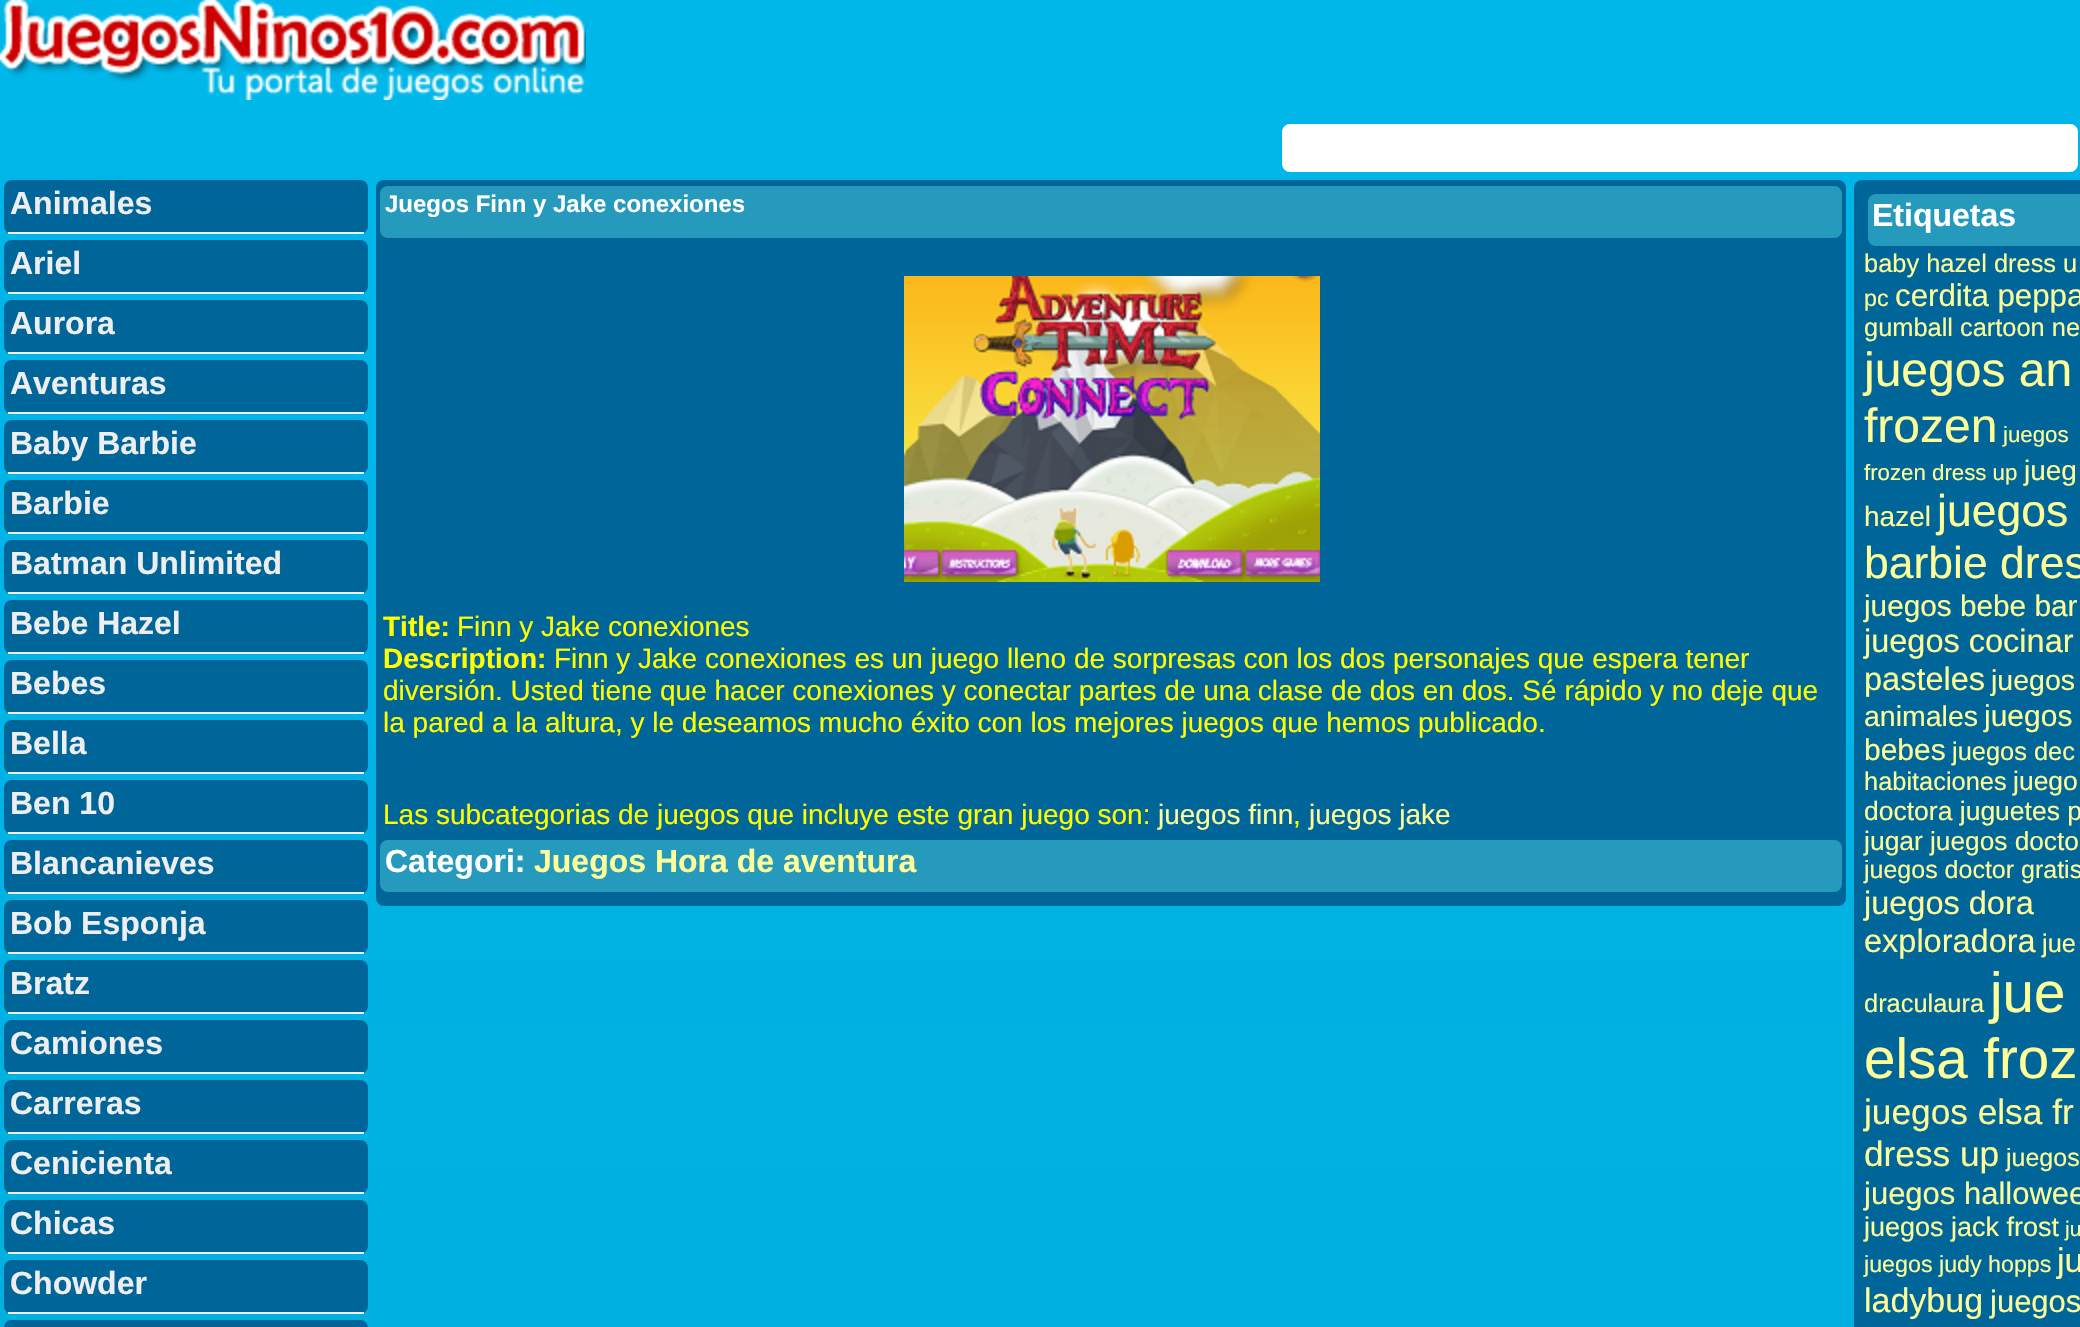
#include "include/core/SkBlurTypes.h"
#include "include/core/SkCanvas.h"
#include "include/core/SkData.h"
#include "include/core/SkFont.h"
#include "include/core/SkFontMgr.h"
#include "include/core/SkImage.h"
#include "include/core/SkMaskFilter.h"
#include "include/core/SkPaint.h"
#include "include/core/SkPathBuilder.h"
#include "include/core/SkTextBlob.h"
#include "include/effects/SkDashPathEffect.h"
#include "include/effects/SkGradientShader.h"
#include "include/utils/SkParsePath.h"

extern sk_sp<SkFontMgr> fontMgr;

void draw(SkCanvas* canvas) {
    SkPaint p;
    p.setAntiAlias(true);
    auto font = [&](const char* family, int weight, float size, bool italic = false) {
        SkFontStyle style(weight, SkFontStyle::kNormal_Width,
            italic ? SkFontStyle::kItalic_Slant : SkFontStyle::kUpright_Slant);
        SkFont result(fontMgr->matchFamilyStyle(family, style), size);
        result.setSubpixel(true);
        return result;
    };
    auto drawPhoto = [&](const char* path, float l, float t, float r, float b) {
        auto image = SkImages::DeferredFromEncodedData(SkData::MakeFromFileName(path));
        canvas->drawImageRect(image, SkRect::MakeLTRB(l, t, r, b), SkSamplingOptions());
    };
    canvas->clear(0xFFFFFFFF);
    {
        const SkColor colors[] = {0xFF00B7EA, 0xFF009EC3};
        const float stops[] = {0, 1};
        const SkPoint ends[] = {{1040, 0}, {1040, 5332}};
        p.setShader(SkGradientShader::MakeLinear(ends, colors, stops, 2, SkTileMode::kClamp));
        p.setAlpha(255);
    }
    canvas->drawRect(SkRect::MakeLTRB(0, 0, 2080, 1327), p);
    drawPhoto("media/1.png", 0, 0, 586, 100);
    p.setShader(nullptr);
    p.setColor(0xFFFFFFFF);
    canvas->drawRoundRect(SkRect::MakeLTRB(1283, 125, 2077, 171), 7, 7, p);
    p.setStyle(SkPaint::kStroke_Style);
    p.setStrokeWidth(2);
    canvas->drawRoundRect(SkRect::MakeLTRB(1283, 125, 2077, 171), 7, 7, p);
    p.setStyle(SkPaint::kFill_Style);
    p.setColor(0xFF006699);
    canvas->drawRoundRect(SkRect::MakeLTRB(4, 180, 368, 234), 8, 8, p);
    p.setColor(0xFFEEEEEE);
    canvas->drawRect(SkRect::MakeLTRB(8, 232, 364, 234), p);
    auto font1 = font("Liberation Sans", 700, 32);
    canvas->drawString("Animales", 10, 214, font1, p);
    p.setColor(0xFF006699);
    canvas->drawRoundRect(SkRect::MakeLTRB(4, 240, 368, 294), 8, 8, p);
    p.setColor(0xFFEEEEEE);
    canvas->drawRect(SkRect::MakeLTRB(8, 292, 364, 294), p);
    canvas->drawString("Ariel", 10, 274, font1, p);
    p.setColor(0xFF006699);
    canvas->drawRoundRect(SkRect::MakeLTRB(4, 300, 368, 354), 8, 8, p);
    p.setColor(0xFFEEEEEE);
    canvas->drawRect(SkRect::MakeLTRB(8, 352, 364, 354), p);
    canvas->drawString("Aurora", 10, 334, font1, p);
    p.setColor(0xFF006699);
    canvas->drawRoundRect(SkRect::MakeLTRB(4, 360, 368, 414), 8, 8, p);
    p.setColor(0xFFEEEEEE);
    canvas->drawRect(SkRect::MakeLTRB(8, 412, 364, 414), p);
    canvas->drawString("Aventuras", 10, 394, font1, p);
    p.setColor(0xFF006699);
    canvas->drawRoundRect(SkRect::MakeLTRB(4, 420, 368, 474), 8, 8, p);
    p.setColor(0xFFEEEEEE);
    canvas->drawRect(SkRect::MakeLTRB(8, 472, 364, 474), p);
    canvas->drawString("Baby Barbie", 10, 454, font1, p);
    p.setColor(0xFF006699);
    canvas->drawRoundRect(SkRect::MakeLTRB(4, 480, 368, 534), 8, 8, p);
    p.setColor(0xFFEEEEEE);
    canvas->drawRect(SkRect::MakeLTRB(8, 532, 364, 534), p);
    canvas->drawString("Barbie", 10, 514, font1, p);
    p.setColor(0xFF006699);
    canvas->drawRoundRect(SkRect::MakeLTRB(4, 540, 368, 594), 8, 8, p);
    p.setColor(0xFFEEEEEE);
    canvas->drawRect(SkRect::MakeLTRB(8, 592, 364, 594), p);
    canvas->drawString("Batman Unlimited", 10, 574, font1, p);
    p.setColor(0xFF006699);
    canvas->drawRoundRect(SkRect::MakeLTRB(4, 600, 368, 654), 8, 8, p);
    p.setColor(0xFFEEEEEE);
    canvas->drawRect(SkRect::MakeLTRB(8, 652, 364, 654), p);
    canvas->drawString("Bebe Hazel", 10, 634, font1, p);
    p.setColor(0xFF006699);
    canvas->drawRoundRect(SkRect::MakeLTRB(4, 660, 368, 714), 8, 8, p);
    p.setColor(0xFFEEEEEE);
    canvas->drawRect(SkRect::MakeLTRB(8, 712, 364, 714), p);
    canvas->drawString("Bebes", 10, 694, font1, p);
    p.setColor(0xFF006699);
    canvas->drawRoundRect(SkRect::MakeLTRB(4, 720, 368, 774), 8, 8, p);
    p.setColor(0xFFEEEEEE);
    canvas->drawRect(SkRect::MakeLTRB(8, 772, 364, 774), p);
    canvas->drawString("Bella", 10, 754, font1, p);
    p.setColor(0xFF006699);
    canvas->drawRoundRect(SkRect::MakeLTRB(4, 780, 368, 834), 8, 8, p);
    p.setColor(0xFFEEEEEE);
    canvas->drawRect(SkRect::MakeLTRB(8, 832, 364, 834), p);
    canvas->drawString("Ben 10", 10, 814, font1, p);
    p.setColor(0xFF006699);
    canvas->drawRoundRect(SkRect::MakeLTRB(4, 840, 368, 894), 8, 8, p);
    p.setColor(0xFFEEEEEE);
    canvas->drawRect(SkRect::MakeLTRB(8, 892, 364, 894), p);
    canvas->drawString("Blancanieves", 10, 874, font1, p);
    p.setColor(0xFF006699);
    canvas->drawRoundRect(SkRect::MakeLTRB(4, 900, 368, 954), 8, 8, p);
    p.setColor(0xFFEEEEEE);
    canvas->drawRect(SkRect::MakeLTRB(8, 952, 364, 954), p);
    canvas->drawString("Bob Esponja", 10, 934, font1, p);
    p.setColor(0xFF006699);
    canvas->drawRoundRect(SkRect::MakeLTRB(4, 960, 368, 1014), 8, 8, p);
    p.setColor(0xFFEEEEEE);
    canvas->drawRect(SkRect::MakeLTRB(8, 1012, 364, 1014), p);
    canvas->drawString("Bratz", 10, 994, font1, p);
    p.setColor(0xFF006699);
    canvas->drawRoundRect(SkRect::MakeLTRB(4, 1020, 368, 1074), 8, 8, p);
    p.setColor(0xFFEEEEEE);
    canvas->drawRect(SkRect::MakeLTRB(8, 1072, 364, 1074), p);
    canvas->drawString("Camiones", 10, 1054, font1, p);
    p.setColor(0xFF006699);
    canvas->drawRoundRect(SkRect::MakeLTRB(4, 1080, 368, 1134), 8, 8, p);
    p.setColor(0xFFEEEEEE);
    canvas->drawRect(SkRect::MakeLTRB(8, 1132, 364, 1134), p);
    canvas->drawString("Carreras", 10, 1114, font1, p);
    p.setColor(0xFF006699);
    canvas->drawRoundRect(SkRect::MakeLTRB(4, 1140, 368, 1194), 8, 8, p);
    p.setColor(0xFFEEEEEE);
    canvas->drawRect(SkRect::MakeLTRB(8, 1192, 364, 1194), p);
    canvas->drawString("Cenicienta", 10, 1174, font1, p);
    p.setColor(0xFF006699);
    canvas->drawRoundRect(SkRect::MakeLTRB(4, 1200, 368, 1254), 8, 8, p);
    p.setColor(0xFFEEEEEE);
    canvas->drawRect(SkRect::MakeLTRB(8, 1252, 364, 1254), p);
    canvas->drawString("Chicas", 10, 1234, font1, p);
    p.setColor(0xFF006699);
    canvas->drawRoundRect(SkRect::MakeLTRB(4, 1260, 368, 1314), 8, 8, p);
    p.setColor(0xFFEEEEEE);
    canvas->drawRect(SkRect::MakeLTRB(8, 1312, 364, 1314), p);
    canvas->drawString("Chowder", 10, 1294, font1, p);
    p.setColor(0xFF006699);
    canvas->drawRoundRect(SkRect::MakeLTRB(4, 1320, 368, 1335), 8, 8, p);
    canvas->drawRoundRect(SkRect::MakeLTRB(376, 180, 1846, 906), 8, 8, p);
    p.setColor(0xFF269ABC);
    canvas->drawRoundRect(SkRect::MakeLTRB(380, 186, 1842, 238), 8, 8, p);
    auto font2 = font("Liberation Sans", 700, 24);
    p.setColor(0xFFFFFFFF);
    canvas->drawString("Juegos Finn y Jake conexiones", 385, 212, font2, p);
    drawPhoto("media/2.png", 904, 276, 1320, 582);
    auto font3 = font("Liberation Sans", 700, 28);
    p.setColor(0xFFFFFF00);
    canvas->drawString("Title:", 383, 636, font3, p);
    auto font4 = font("Liberation Sans", 400, 28);
    canvas->drawString("Finn y Jake conexiones", 457, 636, font4, p);
    canvas->drawString("Description:", 383, 668, font3, p);
    {
        const struct { const char* s; float x, y; } items[] = {
            {"Finn y Jake conexiones es un juego lleno de sorpresas con los dos personajes que espera tener", 554, 668},
            {"diversión. Usted tiene que hacer conexiones y conectar partes de una clase de dos en dos. Sé rápido y no deje que", 383, 700},
            {"la pared a la altura, y le deseamos mucho éxito con los mejores juegos que hemos publicado.", 383, 732},
            {"Las subcategorias de juegos que incluye este gran juego son:", 383, 824},
        };
        for (auto [s, x, y] : items) {
            canvas->drawString(s, x, y, font4, p);
        }
    }
    p.setColor(0xFFFFFF99);
    canvas->drawString("juegos finn", 1158, 824, font4, p);
    p.setColor(0xFFFFFF00);
    canvas->drawString(",", 1293, 824, font4, p);
    p.setColor(0xFFFFFF99);
    canvas->drawString("juegos jake", 1309, 824, font4, p);
    p.setColor(0xFF269ABC);
    canvas->drawRoundRect(SkRect::MakeLTRB(380, 840, 1842, 892), 8, 8, p);
    p.setColor(0xFFFFFFFF);
    canvas->drawString("Categori:", 385, 872, font1, p);
    p.setColor(0xFFFFFF99);
    canvas->drawString("Juegos Hora de aventura", 534, 872, font1, p);
    p.setColor(0xFF006699);
    canvas->drawRoundRect(SkRect::MakeLTRB(1854, 180, 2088, 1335), 8, 8, p);
    p.setColor(0xFF269ABC);
    canvas->drawRoundRect(SkRect::MakeLTRB(1868, 194, 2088, 246), 8, 8, p);
    p.setColor(0xFFFFFFFF);
    canvas->drawString("Etiquetas", 1872, 226, font1, p);
    auto font5 = font("Liberation Sans", 400, 25.4f);
    p.setColor(0xFFFFFF99);
    canvas->drawString("baby hazel dress u", 1864, 272, font5, p);
    auto font6 = font("Liberation Sans", 400, 23.25f);
    canvas->drawString("pc", 1864, 306, font6, p);
    auto font7 = font("Liberation Sans", 400, 31.25f);
    canvas->drawString("cerdita peppa", 1895, 306, font7, p);
    canvas->drawString("gumball cartoon ne", 1864, 336, font5, p);
    auto font8 = font("Liberation Sans", 400, 48);
    canvas->drawString("juegos an", 1864, 386, font8, p);
    canvas->drawString("frozen", 1864, 442, font8, p);
    auto font9 = font("Liberation Sans", 400, 22.25f);
    canvas->drawString("juegos", 2003, 442, font9, p);
    canvas->drawString("frozen dress up", 1864, 480, font9, p);
    canvas->drawString("jueg", 2024, 480, font4, p);
    canvas->drawString("hazel", 1864, 526, font4, p);
    auto font10 = font("Liberation Sans", 400, 44.5f);
    canvas->drawString("juegos", 1937, 526, font10, p);
    canvas->drawString("barbie dres", 1864, 578, font10, p);
    auto font11 = font("Liberation Sans", 400, 29.75f);
    canvas->drawString("juegos bebe bar", 1864, 616, font11, p);
    auto font12 = font("Liberation Sans", 400, 32.5f);
    canvas->drawString("juegos cocinar", 1864, 652, font12, p);
    canvas->drawString("pasteles", 1864, 690, font12, p);
    auto font13 = font("Liberation Sans", 400, 28.5f);
    canvas->drawString("juegos", 1991, 690, font13, p);
    canvas->drawString("animales", 1864, 726, font13, p);
    auto font14 = font("Liberation Sans", 400, 30);
    canvas->drawString("juegos", 1984, 726, font14, p);
    canvas->drawString("bebes", 1864, 760, font14, p);
    canvas->drawString("juegos dec", 1952, 760, font5, p);
    canvas->drawString("habitaciones", 1864, 790, font5, p);
    auto font15 = font("Liberation Sans", 400, 26.5f);
    {
        const struct { const char* s; float x, y; } items[] = {
            {"juego", 2013, 790},
            {"doctora juguetes p", 1864, 820},
            {"jugar", 1864, 850},
        };
        for (auto [s, x, y] : items) {
            canvas->drawString(s, x, y, font15, p);
        }
    }
    auto font16 = font("Liberation Sans", 400, 26.25f);
    canvas->drawString("juegos docto", 1930, 850, font16, p);
    auto font17 = font("Liberation Sans", 400, 25);
    canvas->drawString("juegos doctor gratis", 1864, 878, font17, p);
    canvas->drawString("juegos dora", 1864, 914, font12, p);
    canvas->drawString("exploradora", 1864, 952, font12, p);
    canvas->drawString("jue", 2042, 952, font5, p);
    canvas->drawString("draculaura", 1864, 1012, font5, p);
    auto font18 = font("Liberation Sans", 400, 56.5f);
    canvas->drawString("jue", 1990, 1012, font18, p);
    canvas->drawString("elsa froz", 1864, 1078, font18, p);
    auto font19 = font("Liberation Sans", 400, 35.25f);
    canvas->drawString("juegos elsa fr", 1864, 1124, font19, p);
    canvas->drawString("dress up", 1864, 1166, font19, p);
    canvas->drawString("juegos", 2006, 1166, font17, p);
    auto font20 = font("Liberation Sans", 400, 31);
    canvas->drawString("juegos hallowee", 1864, 1204, font20, p);
    auto font21 = font("Liberation Sans", 400, 27);
    canvas->drawString("juegos jack frost", 1864, 1236, font21, p);
    auto font22 = font("Liberation Sans", 400, 21);
    canvas->drawString("ju", 2065, 1236, font22, p);
    canvas->drawString("juegos judy hopps", 1864, 1272, font6, p);
    auto font23 = font("Liberation Sans", 400, 34);
    canvas->drawString("ju", 2057, 1272, font23, p);
    canvas->drawString("ladybug", 1864, 1312, font23, p);
    canvas->drawString("juegos", 1990, 1312, font20, p);
}
